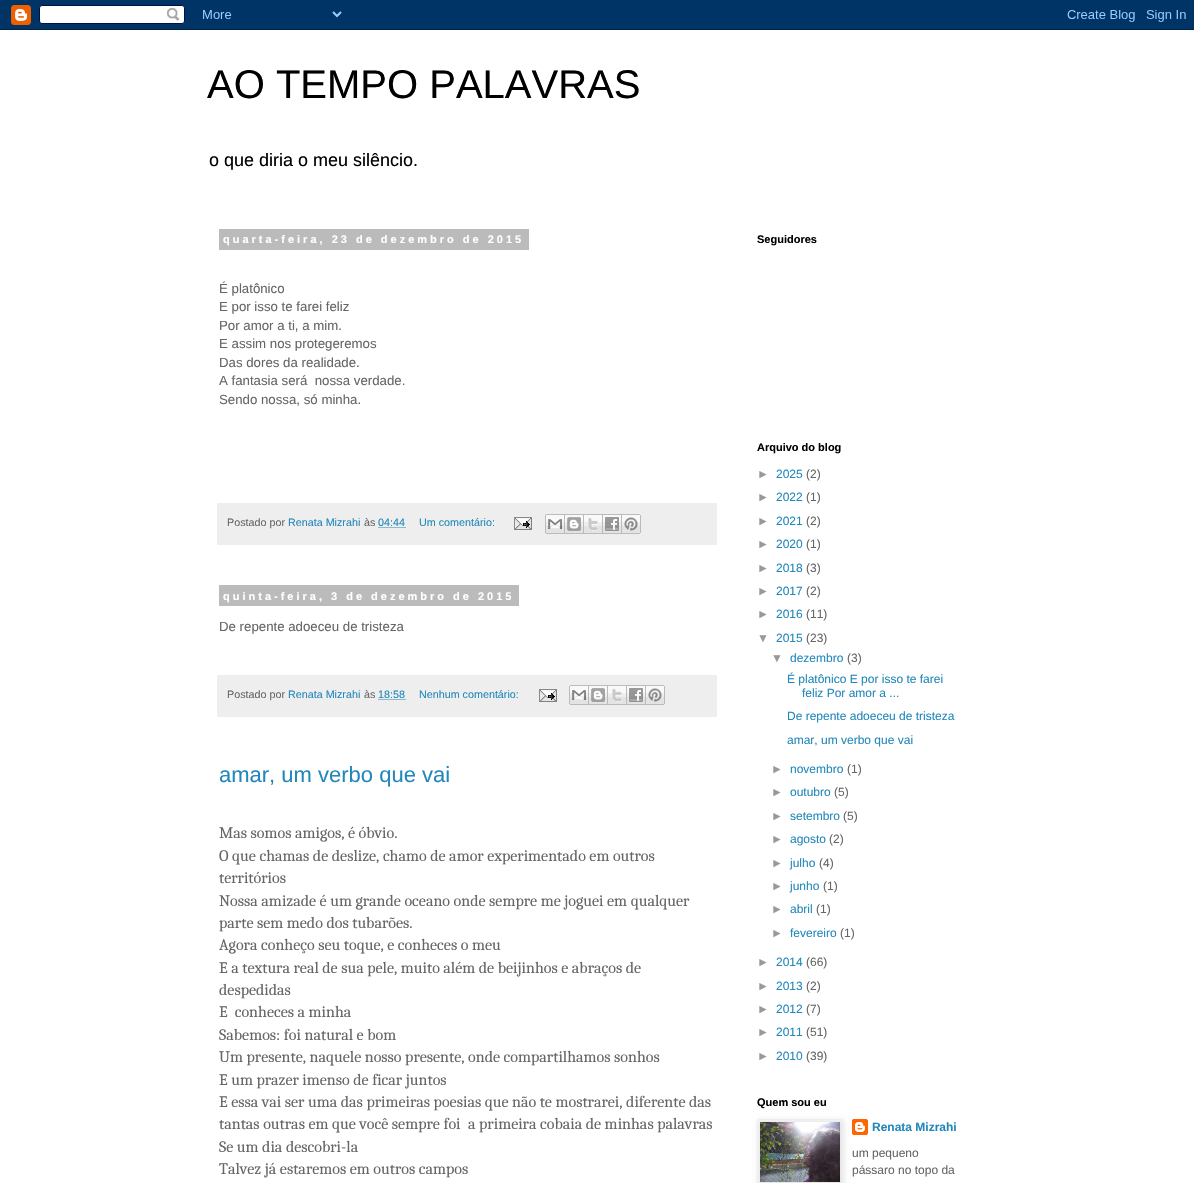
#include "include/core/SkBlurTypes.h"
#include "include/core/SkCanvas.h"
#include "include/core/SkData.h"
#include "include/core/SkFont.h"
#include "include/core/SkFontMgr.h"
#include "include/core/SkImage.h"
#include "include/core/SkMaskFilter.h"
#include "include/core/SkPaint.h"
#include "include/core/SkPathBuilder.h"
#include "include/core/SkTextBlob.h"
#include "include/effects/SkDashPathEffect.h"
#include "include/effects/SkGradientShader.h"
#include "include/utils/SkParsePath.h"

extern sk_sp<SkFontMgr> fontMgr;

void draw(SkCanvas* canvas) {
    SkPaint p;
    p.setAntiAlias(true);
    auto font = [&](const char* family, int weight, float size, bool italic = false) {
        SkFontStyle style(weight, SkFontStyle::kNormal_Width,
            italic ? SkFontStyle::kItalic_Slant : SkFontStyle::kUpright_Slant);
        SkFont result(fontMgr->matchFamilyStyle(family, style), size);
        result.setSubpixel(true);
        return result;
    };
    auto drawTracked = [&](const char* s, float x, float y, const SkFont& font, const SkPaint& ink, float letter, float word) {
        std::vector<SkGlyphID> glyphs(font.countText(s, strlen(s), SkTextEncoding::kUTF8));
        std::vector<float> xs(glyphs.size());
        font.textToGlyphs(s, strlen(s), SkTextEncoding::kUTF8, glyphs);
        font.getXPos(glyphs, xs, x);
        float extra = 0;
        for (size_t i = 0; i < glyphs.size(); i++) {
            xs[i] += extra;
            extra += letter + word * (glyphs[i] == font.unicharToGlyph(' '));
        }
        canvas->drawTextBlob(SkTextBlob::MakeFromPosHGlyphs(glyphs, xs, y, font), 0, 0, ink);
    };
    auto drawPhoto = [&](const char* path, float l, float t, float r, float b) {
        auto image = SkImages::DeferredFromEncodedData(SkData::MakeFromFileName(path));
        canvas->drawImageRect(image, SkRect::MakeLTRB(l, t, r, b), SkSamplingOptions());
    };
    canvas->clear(0xFFFFFFFF);
    drawPhoto("media/1.png", 0, 0, 1194, 30);
    auto font1 = font("Liberation Sans", 400, 40);
    p.setColor(0xFF000000);
    canvas->drawString("AO TEMPO PALAVRAS", 207, 98, font1, p);
    auto font2 = font("Liberation Sans", 400, 18);
    canvas->drawString("o que diria o meu silêncio.", 209, 166, font2, p);
    p.setColor(0xFFBBBBBB);
    canvas->drawRect(SkRect::MakeLTRB(219, 229, 529, 250), p);
    auto font3 = font("Liberation Sans", 700, 11);
    p.setColor(0xFFFFFFFF);
    drawTracked("quarta-feira, 23 de dezembro de 2015", 223, 243, font3, p, 3, 0);
    auto font4 = font("Liberation Sans", 400, 13.25f);
    p.setColor(0xFF666666);
    {
        const struct { const char* s; float x, y; } items[] = {
            {"É platônico", 219, 293},
            {"E por isso te farei feliz", 219, 311},
            {"Por amor a ti, a mim.", 219, 330},
            {"E assim nos protegeremos", 219, 348},
            {"Das dores da realidade.", 219, 367},
            {"A fantasia será  nossa verdade.", 219, 385},
            {"Sendo nossa, só minha.", 219, 404},
        };
        for (auto [s, x, y] : items) {
            canvas->drawString(s, x, y, font4, p);
        }
    }
    p.setColor(0xFFEEEEEE);
    canvas->drawRect(SkRect::MakeLTRB(217, 503, 717, 545), p);
    auto font5 = font("Liberation Sans", 400, 10.75f);
    p.setColor(0xFF666666);
    canvas->drawString("Postado por", 227, 526, font5, p);
    p.setColor(0xFF2288BB);
    canvas->drawString("Renata Mizrahi", 288, 526, font5, p);
    p.setColor(0xFF666666);
    canvas->drawString("às", 364, 526, font5, p);
    p.setColor(0xFF2288BB);
    canvas->drawString("04:44", 378, 526, font5, p);
    p.setStyle(SkPaint::kStroke_Style);
    p.setStrokeWidth(1);
    p.setPathEffect(SkDashPathEffect::Make({{1, 1}}, 0));
    canvas->drawPath(SkPathBuilder().moveTo(378.5f, 527.5f).lineTo(405.5f, 527.5f).detach(), p);
    p.setPathEffect(nullptr);
    p.setStyle(SkPaint::kFill_Style);
    canvas->drawString("Um comentário:", 419, 526, font5, p);
    drawPhoto("media/2.png", 514, 517, 532, 530);
    drawPhoto("media/3.png", 545, 514, 565, 534);
    drawPhoto("media/4.png", 565, 514, 584, 534);
    drawPhoto("media/5.png", 584, 514, 603, 534);
    drawPhoto("media/6.png", 603, 514, 622, 534);
    drawPhoto("media/7.png", 622, 514, 641, 534);
    p.setColor(0xFFBBBBBB);
    canvas->drawRect(SkRect::MakeLTRB(219, 585, 519, 606), p);
    p.setColor(0xFFFFFFFF);
    drawTracked("quinta-feira, 3 de dezembro de 2015", 223, 600, font3, p, 3, 0);
    p.setColor(0xFF666666);
    canvas->drawString("De repente adoeceu de tristeza", 219, 631, font4, p);
    p.setColor(0xFFEEEEEE);
    canvas->drawRect(SkRect::MakeLTRB(217, 675, 717, 717), p);
    p.setColor(0xFF666666);
    canvas->drawString("Postado por", 227, 698, font5, p);
    p.setColor(0xFF2288BB);
    canvas->drawString("Renata Mizrahi", 288, 698, font5, p);
    p.setColor(0xFF666666);
    canvas->drawString("às", 364, 698, font5, p);
    p.setColor(0xFF2288BB);
    canvas->drawString("18:58", 378, 698, font5, p);
    p.setStyle(SkPaint::kStroke_Style);
    p.setPathEffect(SkDashPathEffect::Make({{1, 1}}, 0));
    canvas->drawPath(SkPathBuilder().moveTo(378.5f, 699.5f).lineTo(405.5f, 699.5f).detach(), p);
    p.setPathEffect(nullptr);
    p.setStyle(SkPaint::kFill_Style);
    canvas->drawString("Nenhum comentário:", 419, 698, font5, p);
    drawPhoto("media/2.png", 539, 689, 557, 702);
    drawPhoto("media/3.png", 569, 685, 589, 705);
    drawPhoto("media/4.png", 589, 685, 608, 705);
    drawPhoto("media/5.png", 608, 685, 627, 705);
    drawPhoto("media/6.png", 627, 685, 646, 705);
    drawPhoto("media/7.png", 646, 685, 665, 705);
    auto font6 = font("Liberation Sans", 400, 22);
    canvas->drawString("amar, um verbo que vai", 219, 782, font6, p);
    auto font7 = font("Caladea", 400, 16);
    p.setColor(0xFF666666);
    {
        const struct { const char* s; float x, y; } items[] = {
            {"Mas somos amigos, é óbvio.", 219, 838},
            {"O que chamas de deslize, chamo de amor experimentado em outros", 219, 861},
            {"territórios", 219, 883},
            {"Nossa amizade é um grande oceano onde sempre me joguei em qualquer", 219, 906},
            {"parte sem medo dos tubarões.", 219, 928},
            {"Agora conheço seu toque, e conheces o meu", 219, 950},
            {"E a textura real de sua pele, muito além de beijinhos e abraços de", 219, 973},
            {"despedidas", 219, 995},
            {"E  conheces a minha", 219, 1017},
            {"Sabemos: foi natural e bom", 219, 1040},
            {"Um presente, naquele nosso presente, onde compartilhamos sonhos", 219, 1062},
            {"E um prazer imenso de ficar juntos", 219, 1085},
            {"E essa vai ser uma das primeiras poesias que não te mostrarei, diferente das", 219, 1107},
            {"tantas outras em que você sempre foi", 219, 1129},
            {"a primeira cobaia de minhas palavras", 468, 1129},
            {"Se um dia descobri-la", 219, 1152},
            {"Talvez já estaremos em outros campos", 219, 1174},
        };
        for (auto [s, x, y] : items) {
            canvas->drawString(s, x, y, font7, p);
        }
    }
    p.setColor(0xFF000000);
    canvas->drawString("Seguidores", 757, 243, font3, p);
    canvas->drawString("Arquivo do blog", 757, 451, font3, p);
    auto font8 = font("Liberation Sans", 400, 12);
    p.setColor(0xFF999999);
    canvas->drawString("►", 757, 478, font8, p);
    p.setColor(0xFF2288BB);
    canvas->drawString("2025", 776, 478, font8, p);
    p.setColor(0xFF666666);
    canvas->drawString("(2)", 806, 478, font8, p);
    p.setColor(0xFF999999);
    canvas->drawString("►", 757, 501, font8, p);
    p.setColor(0xFF2288BB);
    canvas->drawString("2022", 776, 501, font8, p);
    p.setColor(0xFF666666);
    canvas->drawString("(1)", 806, 501, font8, p);
    p.setColor(0xFF999999);
    canvas->drawString("►", 757, 525, font8, p);
    p.setColor(0xFF2288BB);
    canvas->drawString("2021", 776, 525, font8, p);
    p.setColor(0xFF666666);
    canvas->drawString("(2)", 806, 525, font8, p);
    p.setColor(0xFF999999);
    canvas->drawString("►", 757, 548, font8, p);
    p.setColor(0xFF2288BB);
    canvas->drawString("2020", 776, 548, font8, p);
    p.setColor(0xFF666666);
    canvas->drawString("(1)", 806, 548, font8, p);
    p.setColor(0xFF999999);
    canvas->drawString("►", 757, 572, font8, p);
    p.setColor(0xFF2288BB);
    canvas->drawString("2018", 776, 572, font8, p);
    p.setColor(0xFF666666);
    canvas->drawString("(3)", 806, 572, font8, p);
    p.setColor(0xFF999999);
    canvas->drawString("►", 757, 595, font8, p);
    p.setColor(0xFF2288BB);
    canvas->drawString("2017", 776, 595, font8, p);
    p.setColor(0xFF666666);
    canvas->drawString("(2)", 806, 595, font8, p);
    p.setColor(0xFF999999);
    canvas->drawString("►", 757, 618, font8, p);
    p.setColor(0xFF2288BB);
    canvas->drawString("2016", 776, 618, font8, p);
    p.setColor(0xFF666666);
    canvas->drawString("(11)", 806, 618, font8, p);
    p.setColor(0xFF999999);
    canvas->drawString("▼", 757, 642, font8, p);
    p.setColor(0xFF2288BB);
    canvas->drawString("2015", 776, 642, font8, p);
    p.setColor(0xFF666666);
    canvas->drawString("(23)", 806, 642, font8, p);
    p.setColor(0xFF999999);
    canvas->drawString("▼", 771, 662, font8, p);
    p.setColor(0xFF2288BB);
    canvas->drawString("dezembro", 790, 662, font8, p);
    p.setColor(0xFF666666);
    canvas->drawString("(3)", 847, 662, font8, p);
    p.setColor(0xFF2288BB);
    {
        const struct { const char* s; float x, y; } items[] = {
            {"É platônico E por isso te farei", 787, 683},
            {"feliz Por amor a ...", 802, 697},
            {"De repente adoeceu de tristeza", 787, 720},
            {"amar, um verbo que vai", 787, 744},
        };
        for (auto [s, x, y] : items) {
            canvas->drawString(s, x, y, font8, p);
        }
    }
    p.setColor(0xFF999999);
    canvas->drawString("►", 771, 773, font8, p);
    p.setColor(0xFF2288BB);
    canvas->drawString("novembro", 790, 773, font8, p);
    p.setColor(0xFF666666);
    canvas->drawString("(1)", 847, 773, font8, p);
    p.setColor(0xFF999999);
    canvas->drawString("►", 771, 796, font8, p);
    p.setColor(0xFF2288BB);
    canvas->drawString("outubro", 790, 796, font8, p);
    p.setColor(0xFF666666);
    canvas->drawString("(5)", 834, 796, font8, p);
    p.setColor(0xFF999999);
    canvas->drawString("►", 771, 820, font8, p);
    p.setColor(0xFF2288BB);
    canvas->drawString("setembro", 790, 820, font8, p);
    p.setColor(0xFF666666);
    canvas->drawString("(5)", 843, 820, font8, p);
    p.setColor(0xFF999999);
    canvas->drawString("►", 771, 843, font8, p);
    p.setColor(0xFF2288BB);
    canvas->drawString("agosto", 790, 843, font8, p);
    p.setColor(0xFF666666);
    canvas->drawString("(2)", 829, 843, font8, p);
    p.setColor(0xFF999999);
    canvas->drawString("►", 771, 867, font8, p);
    p.setColor(0xFF2288BB);
    canvas->drawString("julho", 790, 867, font8, p);
    p.setColor(0xFF666666);
    canvas->drawString("(4)", 819, 867, font8, p);
    p.setColor(0xFF999999);
    canvas->drawString("►", 771, 890, font8, p);
    p.setColor(0xFF2288BB);
    canvas->drawString("junho", 790, 890, font8, p);
    p.setColor(0xFF666666);
    canvas->drawString("(1)", 823, 890, font8, p);
    p.setColor(0xFF999999);
    canvas->drawString("►", 771, 913, font8, p);
    p.setColor(0xFF2288BB);
    canvas->drawString("abril", 790, 913, font8, p);
    p.setColor(0xFF666666);
    canvas->drawString("(1)", 816, 913, font8, p);
    p.setColor(0xFF999999);
    canvas->drawString("►", 771, 937, font8, p);
    p.setColor(0xFF2288BB);
    canvas->drawString("fevereiro", 790, 937, font8, p);
    p.setColor(0xFF666666);
    canvas->drawString("(1)", 840, 937, font8, p);
    p.setColor(0xFF999999);
    canvas->drawString("►", 757, 966, font8, p);
    p.setColor(0xFF2288BB);
    canvas->drawString("2014", 776, 966, font8, p);
    p.setColor(0xFF666666);
    canvas->drawString("(66)", 806, 966, font8, p);
    p.setColor(0xFF999999);
    canvas->drawString("►", 757, 990, font8, p);
    p.setColor(0xFF2288BB);
    canvas->drawString("2013", 776, 990, font8, p);
    p.setColor(0xFF666666);
    canvas->drawString("(2)", 806, 990, font8, p);
    p.setColor(0xFF999999);
    canvas->drawString("►", 757, 1013, font8, p);
    p.setColor(0xFF2288BB);
    canvas->drawString("2012", 776, 1013, font8, p);
    p.setColor(0xFF666666);
    canvas->drawString("(7)", 806, 1013, font8, p);
    p.setColor(0xFF999999);
    canvas->drawString("►", 757, 1036, font8, p);
    p.setColor(0xFF2288BB);
    canvas->drawString("2011", 776, 1036, font8, p);
    p.setColor(0xFF666666);
    canvas->drawString("(51)", 806, 1036, font8, p);
    p.setColor(0xFF999999);
    canvas->drawString("►", 757, 1060, font8, p);
    p.setColor(0xFF2288BB);
    canvas->drawString("2010", 776, 1060, font8, p);
    p.setColor(0xFF666666);
    canvas->drawString("(39)", 806, 1060, font8, p);
    p.setColor(0xFF000000);
    canvas->drawString("Quem sou eu", 757, 1106, font3, p);
    drawPhoto("media/9.png", 852, 1119, 868, 1135);
    p.setColor(0x1A000000);
    p.setMaskFilter(SkMaskFilter::MakeBlur(kNormal_SkBlurStyle, 2.5f));
    canvas->drawRect(SkRect::MakeLTRB(758, 1120, 844, 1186), p);
    p.setMaskFilter(nullptr);
    p.setStyle(SkPaint::kStroke_Style);
    p.setColor(0xFFEEEEEE);
    canvas->drawRect(SkRect::MakeLTRB(757.5f, 1119.5f, 842.5f, 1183.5f), p);
    drawPhoto("media/8.png", 760, 1122, 840, 1182);
    auto font9 = font("Liberation Sans", 700, 12);
    p.setStyle(SkPaint::kFill_Style);
    p.setColor(0xFF2288BB);
    canvas->drawString("Renata Mizrahi", 872, 1131, font9, p);
    p.setColor(0xFF666666);
    canvas->drawString("um pequeno", 852, 1157, font8, p);
    canvas->drawString("pássaro no topo da", 852, 1174, font8, p);
}
